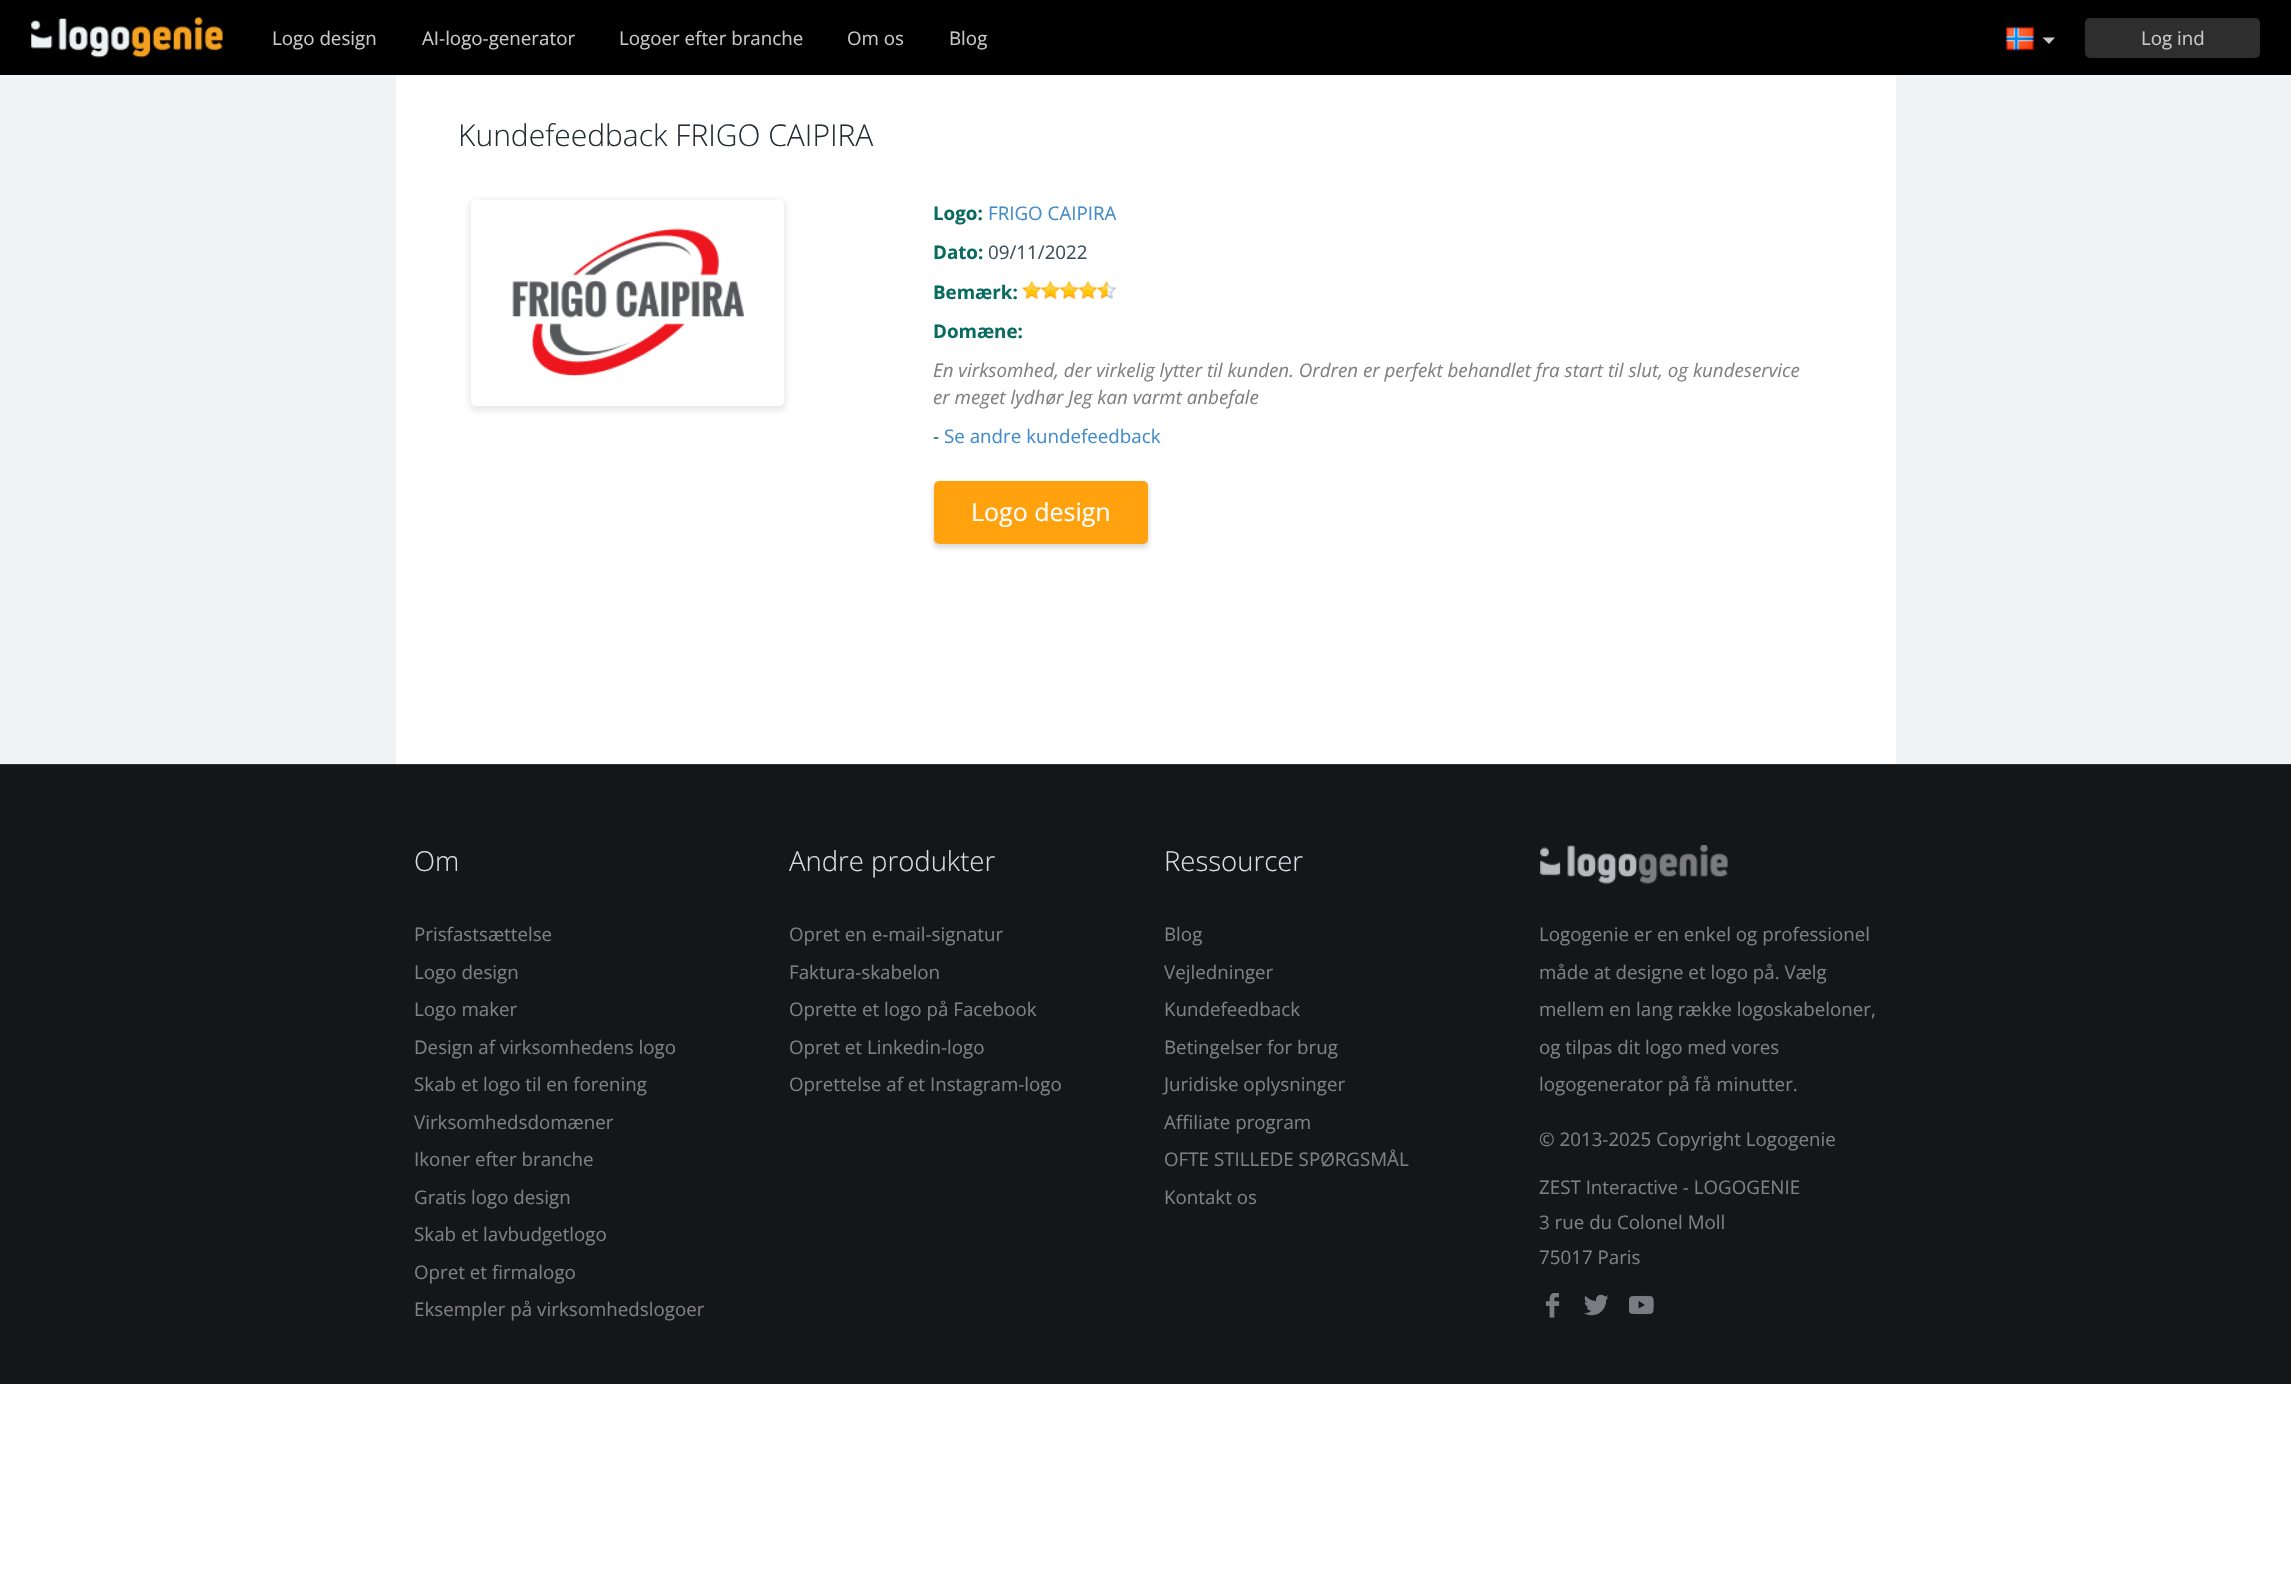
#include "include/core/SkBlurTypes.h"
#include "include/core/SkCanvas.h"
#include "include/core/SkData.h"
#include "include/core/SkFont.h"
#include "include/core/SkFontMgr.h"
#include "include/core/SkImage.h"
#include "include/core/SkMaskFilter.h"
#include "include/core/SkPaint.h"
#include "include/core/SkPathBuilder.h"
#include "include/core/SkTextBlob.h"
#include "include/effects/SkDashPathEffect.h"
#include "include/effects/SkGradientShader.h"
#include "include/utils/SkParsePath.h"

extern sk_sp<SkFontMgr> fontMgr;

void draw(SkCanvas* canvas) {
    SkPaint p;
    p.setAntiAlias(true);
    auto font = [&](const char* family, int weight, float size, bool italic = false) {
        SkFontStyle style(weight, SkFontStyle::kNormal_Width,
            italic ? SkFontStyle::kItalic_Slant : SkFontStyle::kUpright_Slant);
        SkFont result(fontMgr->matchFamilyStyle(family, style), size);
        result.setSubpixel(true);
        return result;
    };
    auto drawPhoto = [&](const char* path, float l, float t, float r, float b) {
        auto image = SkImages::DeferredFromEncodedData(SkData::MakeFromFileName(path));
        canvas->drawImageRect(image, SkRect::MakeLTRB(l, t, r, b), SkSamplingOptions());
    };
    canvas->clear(0xFFFFFFFF);
    p.setColor(0xFF000000);
    canvas->drawRect(SkRect::MakeLTRB(0, 0, 2291, 75), p);
    drawPhoto("media/1.png", 31, 17, 223, 58);
    auto font1 = font("Open Sans", 400, 18.75f);
    p.setColor(0xFFC7C9C9);
    {
        const struct { const char* s; float x, y; } items[] = {
            {"Logo design", 272, 45},
            {"AI-logo-generator", 422, 45},
            {"Logoer efter branche", 619, 45},
            {"Om os", 847, 45},
            {"Blog", 949, 45},
        };
        for (auto [s, x, y] : items) {
            canvas->drawString(s, x, y, font1, p);
        }
    }
    drawPhoto("media/2.png", 2006, 27, 2034, 51);
    canvas->drawPath(SkPathBuilder().moveTo(2042.5f, 37.5f).lineTo(2055, 37.5f).lineTo(2049, 44).close().detach(), p);
    p.setColor(0xFF2E2E2E);
    canvas->drawRoundRect(SkRect::MakeLTRB(2085, 18, 2260, 58), 5, 5, p);
    p.setColor(0xFFC7C9C9);
    canvas->drawString("Log ind", 2141, 45, font1, p);
    {
        const struct { float l, t, r, b; SkColor color; } items[] = {
            {0, 76, 2291, 764, 0xFFF0F3F5},
            {0, 75, 2291, 76, 0xFFF6F8FA},
            {396, 76, 1896, 764, 0xFFFFFFFF},
        };
        for (auto [l, t, r, b, color] : items) {
            p.setColor(color);
            canvas->drawRect(SkRect::MakeLTRB(l, t, r, b), p);
        }
    }
    auto font2 = font("Open Sans", 300, 30);
    p.setColor(0xFF242E33);
    canvas->drawString("Kundefeedback FRIGO CAIPIRA", 458, 146, font2, p);
    canvas->save();
    canvas->clipPath(SkPathBuilder(SkPathFillType::kEvenOdd).moveTo(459, 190).lineTo(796, 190).lineTo(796, 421).lineTo(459, 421).close().moveTo(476, 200).lineTo(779, 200).cubicTo(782, 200, 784, 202, 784, 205).lineTo(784, 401).cubicTo(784, 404, 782, 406, 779, 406).lineTo(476, 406).cubicTo(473, 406, 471, 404, 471, 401).lineTo(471, 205).cubicTo(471, 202, 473, 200, 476, 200).close().detach(), true);
    p.setColor(0x26646464);
    p.setMaskFilter(SkMaskFilter::MakeBlur(kNormal_SkBlurStyle, 3));
    canvas->drawRoundRect(SkRect::MakeLTRB(469, 200, 786, 411), 8, 8, p);
    p.setMaskFilter(nullptr);
    canvas->restore();
    drawPhoto("media/3.png", 512, 228, 745, 377);
    auto font3 = font("Open Sans", 700, 18.75f);
    p.setColor(0xFF086B60);
    canvas->drawString("Logo:", 933, 220, font3, p);
    p.setColor(0xFF428BCA);
    canvas->drawString("FRIGO CAIPIRA", 988, 220, font1, p);
    p.setColor(0xFF086B60);
    canvas->drawString("Dato:", 933, 259, font3, p);
    p.setColor(0xFF3E5059);
    canvas->drawString("09/11/2022", 988, 259, font1, p);
    p.setColor(0xFF086B60);
    canvas->drawString("Bemærk:", 933, 299, font3, p);
    drawPhoto("media/4.png", 1022, 281, 1117, 299);
    canvas->drawString("Domæne:", 933, 338, font3, p);
    auto font4 = font("Open Sans", 400, 18.75f, true);
    p.setColor(0xFF808080);
    canvas->drawString("En virksomhed, der virkelig lytter til kunden. Ordren er perfekt behandlet fra start til slut, og kundeservice", 933, 377, font4, p);
    canvas->drawString("er meget lydhør Jeg kan varmt anbefale", 933, 404, font4, p);
    p.setColor(0xFF086B60);
    canvas->drawString("-", 933, 443, font1, p);
    p.setColor(0xFF428BCA);
    canvas->drawString("Se andre kundefeedback", 944, 443, font1, p);
    p.setColor(0x260A0A0A);
    p.setMaskFilter(SkMaskFilter::MakeBlur(kNormal_SkBlurStyle, 2.5f));
    canvas->drawRoundRect(SkRect::MakeLTRB(933, 483, 1149, 548), 6, 6, p);
    p.setMaskFilter(nullptr);
    p.setColor(0xFFFFA20D);
    canvas->drawRoundRect(SkRect::MakeLTRB(934, 481, 1148, 544), 5, 5, p);
    auto font5 = font("Open Sans", 400, 25);
    p.setColor(0xFFFFFFFF);
    canvas->drawString("Logo design", 971, 521, font5, p);
    p.setColor(0xFF14171A);
    canvas->drawRect(SkRect::MakeLTRB(0, 765, 2291, 1384), p);
    p.setColor(0xFF2F3133);
    canvas->drawRect(SkRect::MakeLTRB(0, 764, 2291, 765), p);
    auto font6 = font("Open Sans", 300, 27.5f);
    p.setColor(0xFFDADFE6);
    canvas->drawString("Om", 414, 871, font6, p);
    p.setColor(0xFF808080);
    {
        const struct { const char* s; float x, y; } items[] = {
            {"Prisfastsættelse", 414, 941},
            {"Logo design", 414, 979},
            {"Logo maker", 414, 1016},
            {"Design af virksomhedens logo", 414, 1054},
            {"Skab et logo til en forening", 414, 1091},
            {"Virksomhedsdomæner", 414, 1129},
            {"Ikoner efter branche", 414, 1166},
            {"Gratis logo design", 414, 1204},
            {"Skab et lavbudgetlogo", 414, 1241},
            {"Opret et firmalogo", 414, 1279},
            {"Eksempler på virksomhedslogoer", 414, 1316},
        };
        for (auto [s, x, y] : items) {
            canvas->drawString(s, x, y, font1, p);
        }
    }
    p.setColor(0xFFDADFE6);
    canvas->drawString("Andre produkter", 789, 871, font6, p);
    p.setColor(0xFF808080);
    {
        const struct { const char* s; float x, y; } items[] = {
            {"Opret en e-mail-signatur", 789, 941},
            {"Faktura-skabelon", 789, 979},
            {"Oprette et logo på Facebook", 789, 1016},
            {"Opret et Linkedin-logo", 789, 1054},
            {"Oprettelse af et Instagram-logo", 789, 1091},
        };
        for (auto [s, x, y] : items) {
            canvas->drawString(s, x, y, font1, p);
        }
    }
    p.setColor(0xFFDADFE6);
    canvas->drawString("Ressourcer", 1164, 871, font6, p);
    p.setColor(0xFF808080);
    {
        const struct { const char* s; float x, y; } items[] = {
            {"Blog", 1164, 941},
            {"Vejledninger", 1164, 979},
            {"Kundefeedback", 1164, 1016},
            {"Betingelser for brug", 1164, 1054},
            {"Juridiske oplysninger", 1164, 1091},
            {"Affiliate program", 1164, 1129},
            {"OFTE STILLEDE SPØRGSMÅL", 1164, 1166},
            {"Kontakt os", 1164, 1204},
        };
        for (auto [s, x, y] : items) {
            canvas->drawString(s, x, y, font1, p);
        }
    }
    drawPhoto("media/5.png", 1540, 845, 1728, 884);
    {
        const struct { const char* s; float x, y; } items[] = {
            {"Logogenie er en enkel og professionel", 1539, 941},
            {"måde at designe et logo på. Vælg", 1539, 979},
            {"mellem en lang række logoskabeloner,", 1539, 1016},
            {"og tilpas dit logo med vores", 1539, 1054},
            {"logogenerator på få minutter.", 1539, 1091},
            {"© 2013-2025 Copyright Logogenie", 1539, 1146},
            {"ZEST Interactive - LOGOGENIE", 1539, 1194},
            {"3 rue du Colonel Moll", 1539, 1229},
            {"75017 Paris", 1539, 1264},
        };
        for (auto [s, x, y] : items) {
            canvas->drawString(s, x, y, font1, p);
        }
    }
    drawPhoto("media/6.png", 1545, 1293, 1560, 1318);
    drawPhoto("media/7.png", 1584, 1294, 1609, 1316);
    drawPhoto("media/8.png", 1629, 1295, 1654, 1315);
}
